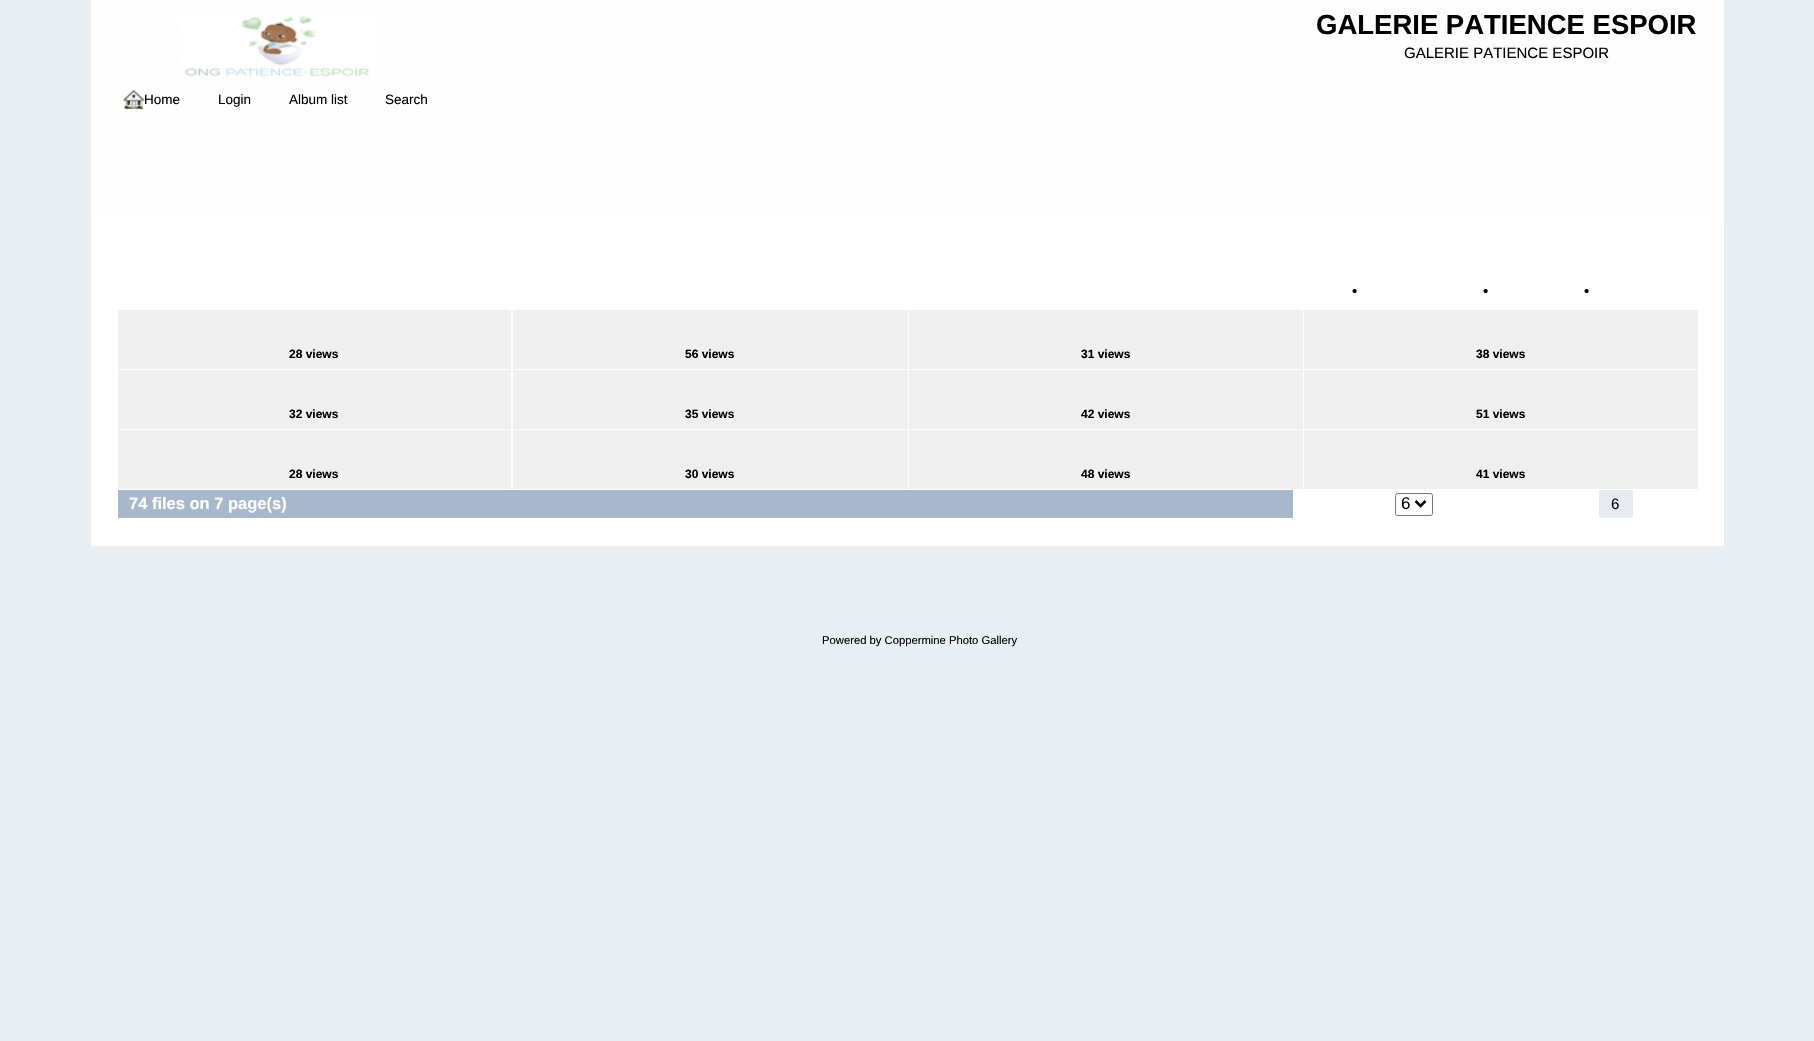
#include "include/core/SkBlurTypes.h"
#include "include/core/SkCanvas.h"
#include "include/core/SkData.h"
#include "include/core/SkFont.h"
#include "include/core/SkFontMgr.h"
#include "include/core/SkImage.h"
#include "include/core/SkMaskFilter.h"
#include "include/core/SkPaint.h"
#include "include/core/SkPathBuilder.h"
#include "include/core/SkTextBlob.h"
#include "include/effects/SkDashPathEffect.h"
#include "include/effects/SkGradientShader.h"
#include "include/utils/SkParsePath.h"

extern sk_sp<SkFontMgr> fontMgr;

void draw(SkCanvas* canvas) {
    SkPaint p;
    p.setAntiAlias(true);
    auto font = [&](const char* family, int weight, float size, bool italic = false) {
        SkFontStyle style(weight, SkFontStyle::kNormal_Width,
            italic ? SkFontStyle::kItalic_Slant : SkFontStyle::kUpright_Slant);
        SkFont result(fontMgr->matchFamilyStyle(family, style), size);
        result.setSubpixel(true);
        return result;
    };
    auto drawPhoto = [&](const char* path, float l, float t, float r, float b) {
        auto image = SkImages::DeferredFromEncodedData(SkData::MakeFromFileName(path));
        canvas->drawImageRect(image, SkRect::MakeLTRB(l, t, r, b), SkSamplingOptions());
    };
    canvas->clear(0xFFE9EEF2);
    p.setColor(0xFFFEFEFE);
    canvas->drawRect(SkRect::MakeLTRB(91, 0, 1724, 219), p);
    drawPhoto("media/1.png", 177, 16, 380, 77);
    auto font1 = font("Liberation Sans", 700, 27.5f);
    p.setColor(0xFF000000);
    canvas->drawString("GALERIE PATIENCE ESPOIR", 1316, 34, font1, p);
    auto font2 = font("Liberation Sans", 400, 15);
    canvas->drawString("GALERIE PATIENCE ESPOIR", 1404, 58, font2, p);
    drawPhoto("media/2.png", 123, 90, 144, 110);
    auto font3 = font("Liberation Sans", 400, 13.5f);
    {
        const struct { const char* s; float x, y; } items[] = {
            {"Home", 144, 104},
            {"Login", 218, 104},
            {"Album list", 289, 104},
            {"Search", 385, 104},
        };
        for (auto [s, x, y] : items) {
            canvas->drawString(s, x, y, font3, p);
        }
    }
    p.setColor(0xFFFFFFFF);
    canvas->drawRect(SkRect::MakeLTRB(91, 219, 1724, 546), p);
    p.setColor(0xFF000000);
    {
        const struct { const char* s; float x, y; } items[] = {
            {"•", 1352, 296},
            {"•", 1483, 296},
            {"•", 1584, 296},
        };
        for (auto [s, x, y] : items) {
            canvas->drawString(s, x, y, font2, p);
        }
    }
    p.setColor(0xFFEFEFEF);
    canvas->drawRect(SkRect::MakeLTRB(118, 310, 511, 369), p);
    auto font4 = font("Liberation Sans", 700, 12);
    p.setColor(0xFF000000);
    canvas->drawString("28 views", 289, 358, font4, p);
    p.setColor(0xFFEFEFEF);
    canvas->drawRect(SkRect::MakeLTRB(513, 310, 908, 369), p);
    p.setColor(0xFF000000);
    canvas->drawString("56 views", 685, 358, font4, p);
    p.setColor(0xFFEFEFEF);
    canvas->drawRect(SkRect::MakeLTRB(909, 310, 1303, 369), p);
    p.setColor(0xFF000000);
    canvas->drawString("31 views", 1081, 358, font4, p);
    p.setColor(0xFFEFEFEF);
    canvas->drawRect(SkRect::MakeLTRB(1304, 310, 1698, 369), p);
    p.setColor(0xFF000000);
    canvas->drawString("38 views", 1476, 358, font4, p);
    p.setColor(0xFFEFEFEF);
    canvas->drawRect(SkRect::MakeLTRB(118, 370, 511, 429), p);
    p.setColor(0xFF000000);
    canvas->drawString("32 views", 289, 418, font4, p);
    p.setColor(0xFFEFEFEF);
    canvas->drawRect(SkRect::MakeLTRB(513, 370, 908, 429), p);
    p.setColor(0xFF000000);
    canvas->drawString("35 views", 685, 418, font4, p);
    p.setColor(0xFFEFEFEF);
    canvas->drawRect(SkRect::MakeLTRB(909, 370, 1303, 429), p);
    p.setColor(0xFF000000);
    canvas->drawString("42 views", 1081, 418, font4, p);
    p.setColor(0xFFEFEFEF);
    canvas->drawRect(SkRect::MakeLTRB(1304, 370, 1698, 429), p);
    p.setColor(0xFF000000);
    canvas->drawString("51 views", 1476, 418, font4, p);
    p.setColor(0xFFEFEFEF);
    canvas->drawRect(SkRect::MakeLTRB(118, 430, 511, 489), p);
    p.setColor(0xFF000000);
    canvas->drawString("28 views", 289, 478, font4, p);
    p.setColor(0xFFEFEFEF);
    canvas->drawRect(SkRect::MakeLTRB(513, 430, 908, 489), p);
    p.setColor(0xFF000000);
    canvas->drawString("30 views", 685, 478, font4, p);
    p.setColor(0xFFEFEFEF);
    canvas->drawRect(SkRect::MakeLTRB(909, 430, 1303, 489), p);
    p.setColor(0xFF000000);
    canvas->drawString("48 views", 1081, 478, font4, p);
    p.setColor(0xFFEFEFEF);
    canvas->drawRect(SkRect::MakeLTRB(1304, 430, 1698, 489), p);
    p.setColor(0xFF000000);
    canvas->drawString("41 views", 1476, 478, font4, p);
    p.setColor(0xFFA8B8CC);
    canvas->drawRect(SkRect::MakeLTRB(118, 490, 1293, 518), p);
    auto font5 = font("Liberation Sans", 700, 16.5f);
    p.setColor(0xFFFFFFFF);
    canvas->drawString("74 files on 7 page(s)", 129, 509, font5, p);
    p.setStyle(SkPaint::kStroke_Style);
    p.setStrokeWidth(1);
    p.setColor(0xFF767676);
    canvas->drawRoundRect(SkRect::MakeLTRB(1395.5f, 493.5f, 1432.5f, 515.5f), 2, 2, p);
    p.setStrokeWidth(2.5f);
    p.setColor(0xFF000000);
    canvas->drawPath(SkPathBuilder().moveTo(1415.5f, 501).lineTo(1420.5f, 506).lineTo(1425.5f, 501).detach(), p);
    auto font6 = font("Liberation Sans", 400, 17);
    p.setStyle(SkPaint::kFill_Style);
    canvas->drawString("6", 1401, 509, font6, p);
    p.setColor(0xFFE7EAEF);
    canvas->drawRect(SkRect::MakeLTRB(1599, 490, 1633, 518), p);
    p.setColor(0xFF000000);
    canvas->drawString("6", 1611, 509, font2, p);
    auto font7 = font("Liberation Sans", 400, 11.25f);
    canvas->drawString("Powered by Coppermine Photo Gallery", 822, 644, font7, p);
}
